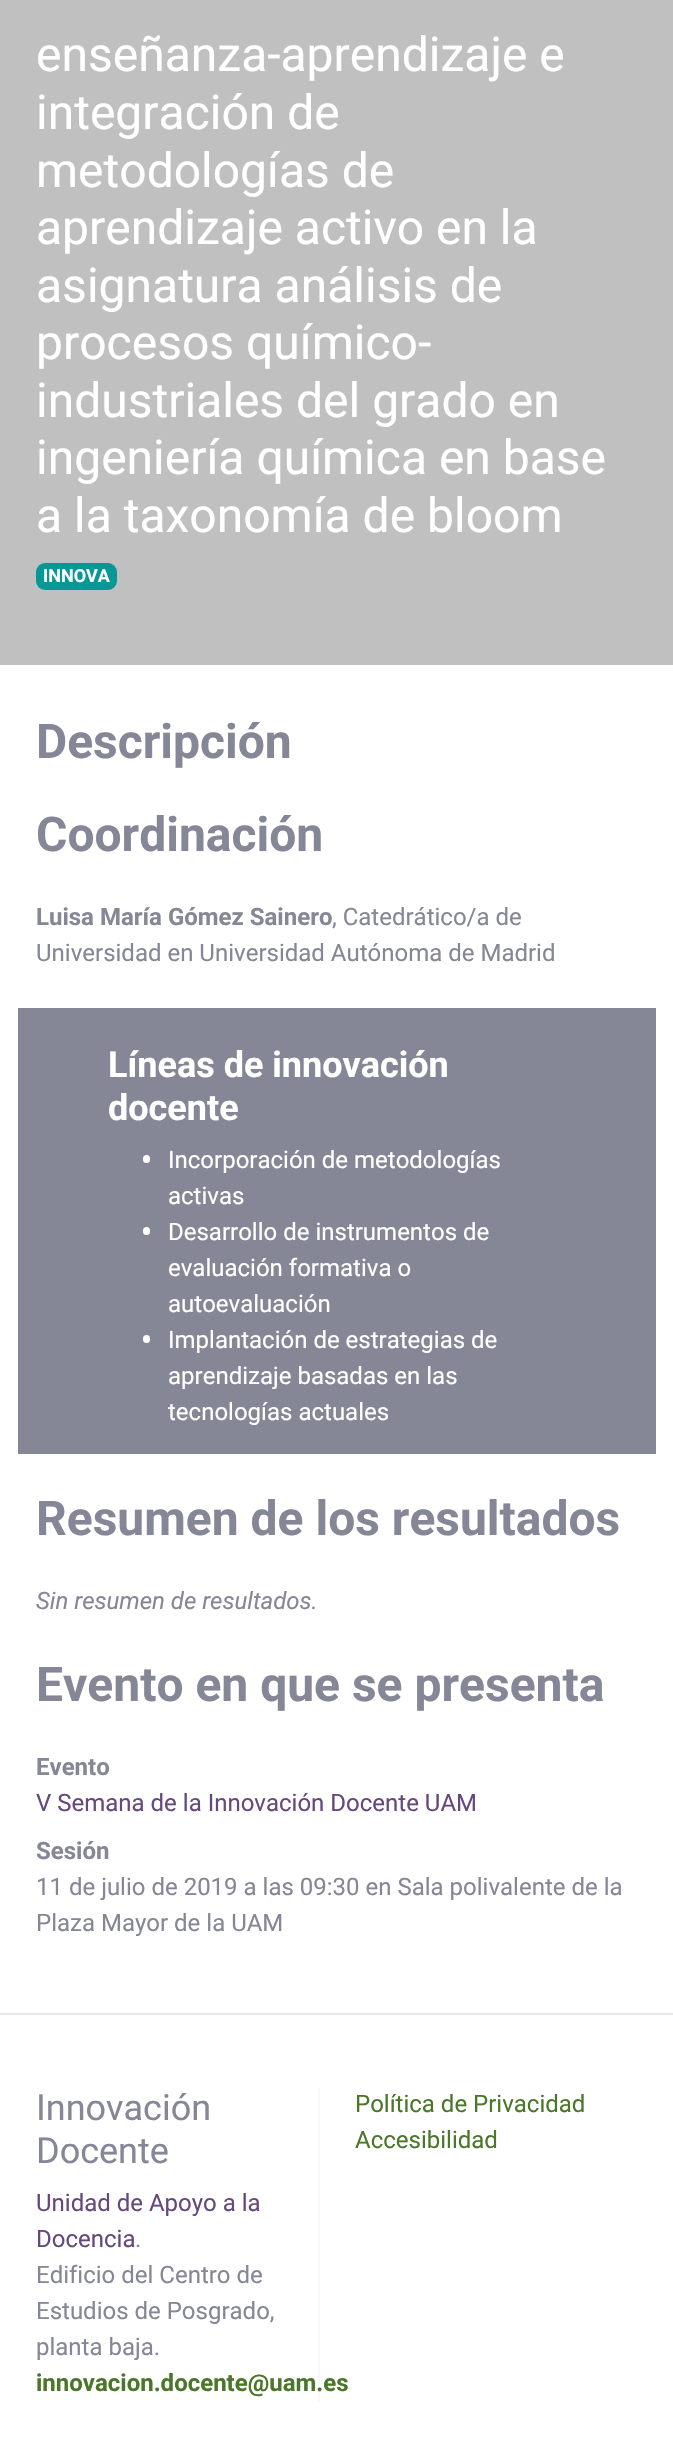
#include "include/core/SkBlurTypes.h"
#include "include/core/SkCanvas.h"
#include "include/core/SkData.h"
#include "include/core/SkFont.h"
#include "include/core/SkFontMgr.h"
#include "include/core/SkImage.h"
#include "include/core/SkMaskFilter.h"
#include "include/core/SkPaint.h"
#include "include/core/SkPathBuilder.h"
#include "include/core/SkTextBlob.h"
#include "include/effects/SkDashPathEffect.h"
#include "include/effects/SkGradientShader.h"
#include "include/utils/SkParsePath.h"

extern sk_sp<SkFontMgr> fontMgr;

void draw(SkCanvas* canvas) {
    SkPaint p;
    p.setAntiAlias(true);
    auto font = [&](const char* family, int weight, float size, bool italic = false) {
        SkFontStyle style(weight, SkFontStyle::kNormal_Width,
            italic ? SkFontStyle::kItalic_Slant : SkFontStyle::kUpright_Slant);
        SkFont result(fontMgr->matchFamilyStyle(family, style), size);
        result.setSubpixel(true);
        return result;
    };
    canvas->clear(0xFFFFFFFF);
    p.setColor(0xFFC0C0C0);
    canvas->drawRect(SkRect::MakeLTRB(0, 0, 673, 665), p);
    auto font1 = font("Roboto", 400, 48);
    p.setColor(0xFFFFFFFF);
    {
        const struct { const char* s; float x, y; } items[] = {
            {"enseñanza-aprendizaje e", 36, 71},
            {"integración de", 36, 129},
            {"metodologías de", 36, 187},
            {"aprendizaje activo en la", 36, 244},
            {"asignatura análisis de", 36, 302},
            {"procesos químico-", 36, 359},
            {"industriales del grado en", 36, 417},
            {"ingeniería química en base", 36, 474},
            {"a la taxonomía de bloom", 36, 532},
        };
        for (auto [s, x, y] : items) {
            canvas->drawString(s, x, y, font1, p);
        }
    }
    p.setColor(0xFF069797);
    canvas->drawRoundRect(SkRect::MakeLTRB(36, 563, 117, 590), 9, 9, p);
    auto font2 = font("Roboto", 700, 18);
    p.setColor(0xFFFFFFFF);
    canvas->drawString("INNOVA", 43, 582, font2, p);
    auto font3 = font("Roboto", 700, 48);
    p.setColor(0xFF858796);
    canvas->drawString("Descripción", 36, 758, font3, p);
    canvas->drawString("Coordinación", 36, 851, font3, p);
    auto font4 = font("Roboto", 700, 24);
    canvas->drawString("Luisa María Gómez Sainero", 36, 925, font4, p);
    auto font5 = font("Roboto", 400, 24);
    canvas->drawString(", Catedrático/a de", 332, 925, font5, p);
    canvas->drawString("Universidad en Universidad Autónoma de Madrid", 36, 961, font5, p);
    canvas->drawRect(SkRect::MakeLTRB(18, 1008, 656, 1454), p);
    auto font6 = font("Roboto", 700, 36);
    p.setColor(0xFFFFFFFF);
    canvas->drawString("Líneas de innovación", 108, 1077, font6, p);
    canvas->drawString("docente", 108, 1120, font6, p);
    canvas->drawRoundRect(SkRect::MakeLTRB(143, 1155, 150, 1163), 3.5f, 3.5f, p);
    canvas->drawString("Incorporación de metodologías", 168, 1168, font5, p);
    canvas->drawString("activas", 168, 1204, font5, p);
    canvas->drawRoundRect(SkRect::MakeLTRB(143, 1227, 150, 1235), 3.5f, 3.5f, p);
    {
        const struct { const char* s; float x, y; } items[] = {
            {"Desarrollo de instrumentos de", 168, 1240},
            {"evaluación formativa o", 168, 1276},
            {"autoevaluación", 168, 1312},
        };
        for (auto [s, x, y] : items) {
            canvas->drawString(s, x, y, font5, p);
        }
    }
    canvas->drawRoundRect(SkRect::MakeLTRB(143, 1335, 150, 1343), 3.5f, 3.5f, p);
    {
        const struct { const char* s; float x, y; } items[] = {
            {"Implantación de estrategias de", 168, 1348},
            {"aprendizaje basadas en las", 168, 1384},
            {"tecnologías actuales", 168, 1420},
        };
        for (auto [s, x, y] : items) {
            canvas->drawString(s, x, y, font5, p);
        }
    }
    p.setColor(0xFF858796);
    canvas->drawString("Resumen de los resultados", 36, 1535, font3, p);
    auto font7 = font("Roboto", 400, 24, true);
    canvas->drawString("Sin resumen de resultados.", 36, 1609, font7, p);
    canvas->drawString("Evento en que se presenta", 36, 1701, font3, p);
    canvas->drawString("Evento", 36, 1775, font4, p);
    p.setColor(0xFF66487C);
    canvas->drawString("V Semana de la Innovación Docente UAM", 36, 1811, font5, p);
    p.setColor(0xFF858796);
    canvas->drawString("Sesión", 36, 1859, font4, p);
    canvas->drawString("11 de julio de 2019 a las 09:30 en Sala polivalente de la", 36, 1895, font5, p);
    canvas->drawString("Plaza Mayor de la UAM", 36, 1931, font5, p);
    p.setColor(0xFFE6E6E6);
    canvas->drawRect(SkRect::MakeLTRB(0, 2013, 673, 2015), p);
    p.setColor(0xFFF8F9FC);
    canvas->drawRect(SkRect::MakeLTRB(318, 2087, 320, 2402), p);
    auto font8 = font("Roboto", 400, 36);
    p.setColor(0xFF858796);
    canvas->drawString("Innovación", 36, 2120, font8, p);
    canvas->drawString("Docente", 36, 2163, font8, p);
    p.setColor(0xFF66487C);
    canvas->drawString("Unidad de Apoyo a la", 36, 2211, font5, p);
    canvas->drawString("Docencia", 36, 2247, font5, p);
    p.setColor(0xFF858796);
    {
        const struct { const char* s; float x, y; } items[] = {
            {".", 135, 2247},
            {"Edificio del Centro de", 36, 2283},
            {"Estudios de Posgrado,", 36, 2319},
            {"planta baja.", 36, 2355},
        };
        for (auto [s, x, y] : items) {
            canvas->drawString(s, x, y, font5, p);
        }
    }
    p.setColor(0xFF4A7729);
    canvas->drawString("innovacion.docente@uam.es", 36, 2391, font4, p);
    canvas->drawString("Política de Privacidad", 355, 2112, font5, p);
    canvas->drawString("Accesibilidad", 355, 2148, font5, p);
}
